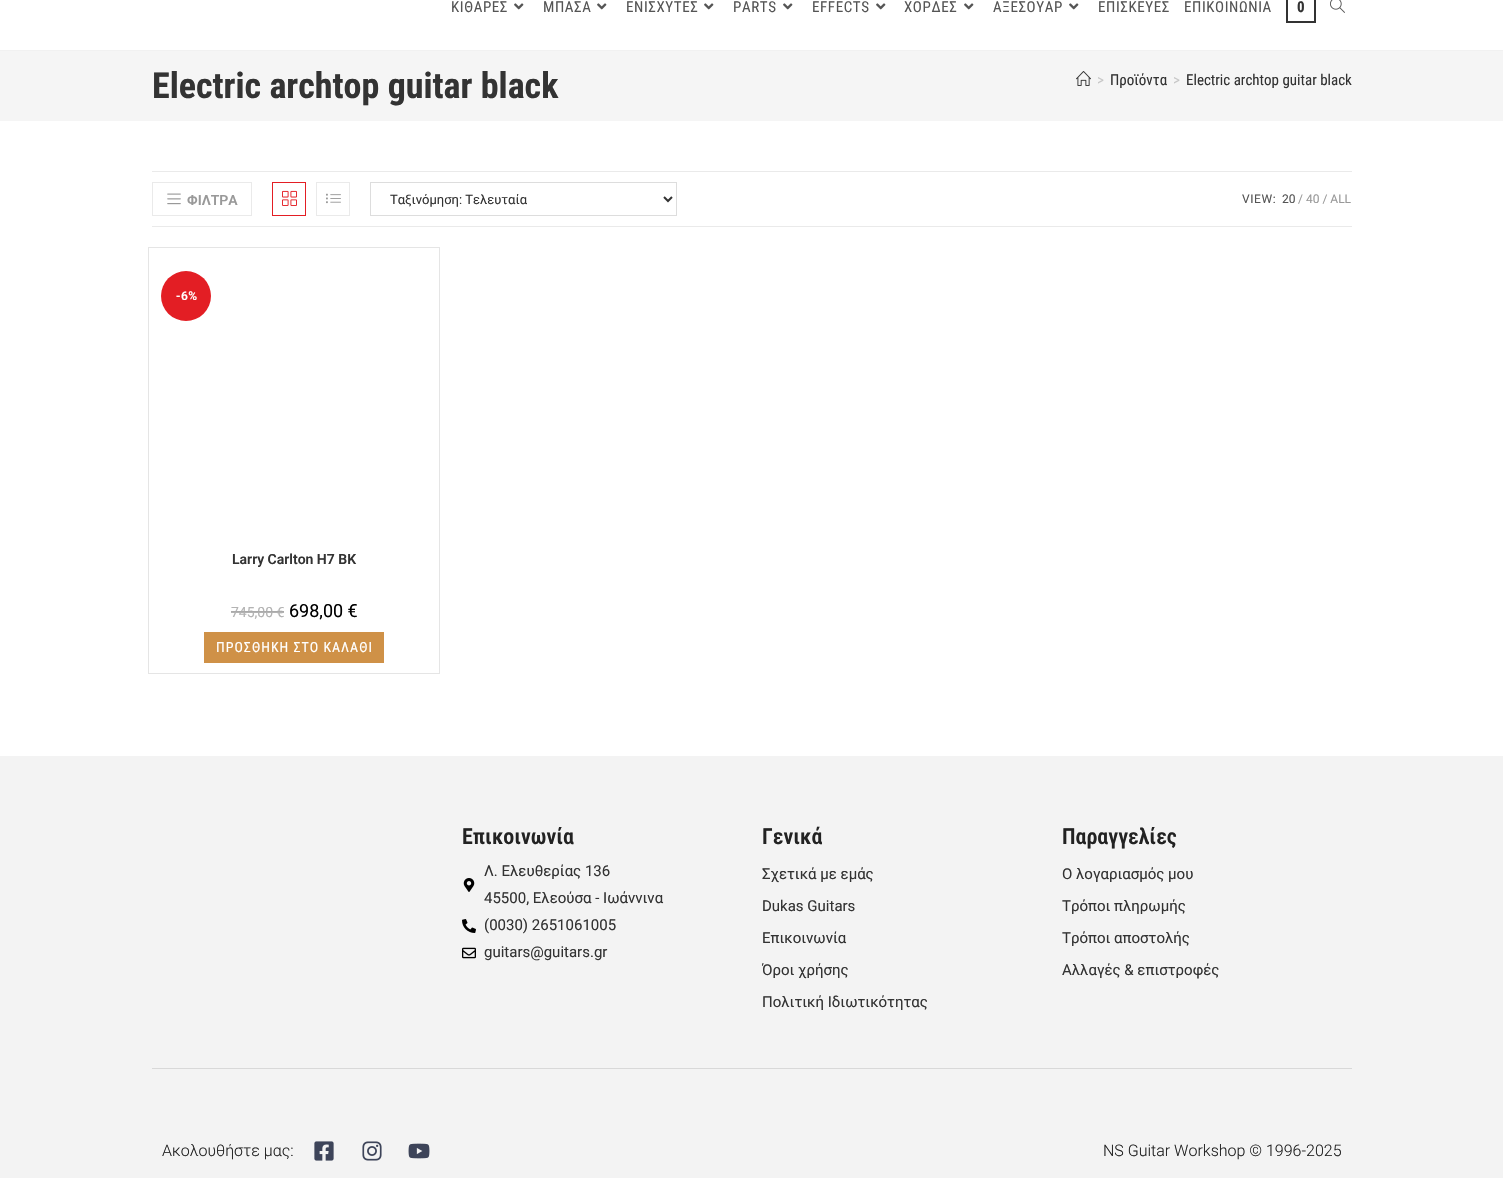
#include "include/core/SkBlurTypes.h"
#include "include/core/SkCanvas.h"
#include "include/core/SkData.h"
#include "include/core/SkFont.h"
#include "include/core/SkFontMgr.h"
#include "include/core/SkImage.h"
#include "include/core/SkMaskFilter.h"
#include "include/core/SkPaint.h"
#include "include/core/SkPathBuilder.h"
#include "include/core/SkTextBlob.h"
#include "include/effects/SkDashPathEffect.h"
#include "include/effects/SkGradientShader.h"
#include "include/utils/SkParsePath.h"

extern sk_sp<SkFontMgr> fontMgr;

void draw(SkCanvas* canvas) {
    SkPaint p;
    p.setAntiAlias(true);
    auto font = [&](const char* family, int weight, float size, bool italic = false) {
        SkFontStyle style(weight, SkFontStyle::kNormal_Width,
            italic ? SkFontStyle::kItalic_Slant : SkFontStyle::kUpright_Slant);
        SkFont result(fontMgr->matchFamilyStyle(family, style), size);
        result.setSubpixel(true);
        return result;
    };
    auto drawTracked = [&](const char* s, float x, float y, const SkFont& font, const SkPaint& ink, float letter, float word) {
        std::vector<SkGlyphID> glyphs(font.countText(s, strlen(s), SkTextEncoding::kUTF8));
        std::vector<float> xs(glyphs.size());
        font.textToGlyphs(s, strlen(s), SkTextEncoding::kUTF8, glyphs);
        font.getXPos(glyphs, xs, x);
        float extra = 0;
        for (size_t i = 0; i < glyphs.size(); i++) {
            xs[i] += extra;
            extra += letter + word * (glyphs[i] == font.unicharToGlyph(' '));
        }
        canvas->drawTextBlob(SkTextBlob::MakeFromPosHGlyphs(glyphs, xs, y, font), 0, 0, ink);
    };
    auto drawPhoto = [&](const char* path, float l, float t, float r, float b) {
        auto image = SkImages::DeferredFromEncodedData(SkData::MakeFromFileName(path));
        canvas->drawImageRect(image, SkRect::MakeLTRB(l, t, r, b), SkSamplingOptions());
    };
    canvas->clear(0xFFFFFFFF);
    p.setColor(0xFFF1F1F1);
    canvas->drawRect(SkRect::MakeLTRB(0, 50, 1503, 51), p);
    auto font1 = font("Roboto Condensed", 400, 15);
    p.setColor(0xFF555555);
    drawTracked("ΚΙΘΑΡΕΣ", 451, 12, font1, p, 0.6f, 0);
    drawPhoto("media/1.png", 514, 3, 524, 10);
    drawTracked("ΜΠΑΣΑ", 543, 12, font1, p, 0.6f, 0);
    drawPhoto("media/1.png", 597, 3, 607, 10);
    drawTracked("ΕΝΙΣΧΥΤΕΣ", 626, 12, font1, p, 0.6f, 0);
    drawPhoto("media/1.png", 704, 3, 714, 10);
    drawTracked("PARTS", 733, 12, font1, p, 0.6f, 0);
    drawPhoto("media/1.png", 783, 3, 793, 10);
    drawTracked("EFFECTS", 812, 12, font1, p, 0.6f, 0);
    drawPhoto("media/1.png", 876, 3, 886, 10);
    drawTracked("ΧΟΡΔΕΣ", 904, 12, font1, p, 0.6f, 0);
    drawPhoto("media/1.png", 964, 3, 974, 10);
    drawTracked("ΑΞΕΣΟΥΑΡ", 993, 12, font1, p, 0.6f, 0);
    drawPhoto("media/1.png", 1069, 3, 1079, 10);
    drawTracked("ΕΠΙΣΚΕΥΕΣ", 1098, 12, font1, p, 0.6f, 0);
    drawTracked("ΕΠΙΚΟΙΝΩΝΙΑ", 1184, 12, font1, p, 0.6f, 0);
    p.setStyle(SkPaint::kStroke_Style);
    p.setStrokeWidth(2);
    p.setColor(0xFF333333);
    canvas->drawRect(SkRect::MakeLTRB(1287, -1, 1315, 22), p);
    auto font2 = font("Roboto Condensed", 700, 15);
    p.setStyle(SkPaint::kFill_Style);
    canvas->drawString("0", 1297, 12, font2, p);
    drawPhoto("media/2.png", 1330, 0, 1345, 13);
    p.setColor(0xFFF5F5F5);
    canvas->drawRect(SkRect::MakeLTRB(0, 51, 1503, 121), p);
    auto font3 = font("Roboto Condensed", 700, 36);
    p.setColor(0xFF333333);
    canvas->drawString("Electric archtop guitar black", 152, 98, font3, p);
    drawPhoto("media/3.png", 1076, 71, 1091, 86);
    p.setColor(0xFFC6C6C6);
    canvas->drawString(">", 1097, 85, font1, p);
    p.setColor(0xFF333333);
    canvas->drawString("Προϊόντα", 1110, 85, font1, p);
    p.setColor(0xFFC6C6C6);
    canvas->drawString(">", 1173, 85, font1, p);
    p.setColor(0xFF333333);
    canvas->drawString("Electric archtop guitar black", 1186, 85, font1, p);
    p.setColor(0xFFEAEAEA);
    canvas->drawRect(SkRect::MakeLTRB(152, 171, 1352, 172), p);
    canvas->drawRect(SkRect::MakeLTRB(152, 226, 1352, 227), p);
    p.setStyle(SkPaint::kStroke_Style);
    p.setStrokeWidth(1);
    canvas->drawRect(SkRect::MakeLTRB(152.5f, 182.5f, 251.5f, 215.5f), p);
    drawPhoto("media/4.png", 167, 193, 181, 205);
    auto font4 = font("Roboto", 600, 14);
    p.setStyle(SkPaint::kFill_Style);
    p.setColor(0xFF999999);
    canvas->drawString("ΦΙΛΤΡΑ", 187, 205, font4, p);
    p.setStyle(SkPaint::kStroke_Style);
    p.setColor(0xFFE31E24);
    canvas->drawRect(SkRect::MakeLTRB(272.5f, 182.5f, 305.5f, 215.5f), p);
    drawPhoto("media/5.png", 282, 190, 297, 206);
    p.setColor(0xFFEAEAEA);
    canvas->drawRect(SkRect::MakeLTRB(316.5f, 182.5f, 349.5f, 215.5f), p);
    drawPhoto("media/6.png", 326, 193, 341, 204);
    p.setColor(0xFFDDDDDD);
    canvas->drawRect(SkRect::MakeLTRB(370.5f, 182.5f, 676.5f, 215.5f), p);
    p.setStrokeWidth(2);
    p.setColor(0xFF333333);
    canvas->drawPath(SkPathBuilder().moveTo(664, 197).lineTo(668, 201).lineTo(672, 197).detach(), p);
    auto font5 = font("Roboto", 400, 13);
    p.setStyle(SkPaint::kFill_Style);
    canvas->drawString("Ταξινόμηση: Τελευταία", 390, 204, font5, p);
    auto font6 = font("Roboto", 400, 12);
    p.setColor(0xFF555555);
    drawTracked("VIEW:", 1242, 203, font6, p, 0.6f, 0);
    canvas->drawString("20", 1282, 203, font6, p);
    p.setColor(0xFF999999);
    canvas->drawString("/ 40 / ALL", 1298, 203, font6, p);
    p.setStyle(SkPaint::kStroke_Style);
    p.setStrokeWidth(1);
    p.setColor(0xFFE5E5E5);
    canvas->drawRect(SkRect::MakeLTRB(148.5f, 247.5f, 439.5f, 673.5f), p);
    p.setStyle(SkPaint::kFill_Style);
    p.setColor(0xFFE31E24);
    canvas->drawCircle(186, 296, 25, p);
    auto font7 = font("Roboto", 600, 12);
    p.setColor(0xFFFFFFFF);
    drawTracked("-6%", 176, 300, font7, p, 0.5f, 0);
    p.setColor(0xFF333333);
    canvas->drawString("Larry Carlton H7 BK", 232, 564, font4, p);
    auto font8 = font("Roboto", 400, 14);
    p.setColor(0xFFB3B3B3);
    canvas->drawString("745,00 €", 231, 617, font8, p);
    canvas->drawRect(SkRect::MakeLTRB(231, 612, 284, 613), p);
    p.setColor(0xFFAAAAAA);
    canvas->drawRect(SkRect::MakeLTRB(231, 611, 284, 612), p);
    auto font9 = font("Roboto", 400, 18);
    p.setColor(0xFF000000);
    canvas->drawString("698,00 €", 289, 617, font9, p);
    p.setColor(0xFFCF9147);
    canvas->drawRect(SkRect::MakeLTRB(204, 632, 384, 663), p);
    auto font10 = font("Roboto Condensed", 400, 14);
    p.setColor(0xFFFFFFFF);
    drawTracked("ΠΡΟΣΘΗΚΗ ΣΤΟ ΚΑΛΑΘΙ", 216, 652, font10, p, 1, 0);
    p.setColor(0xFFF3F3F3);
    canvas->drawRect(SkRect::MakeLTRB(0, 756, 1503, 1178), p);
    auto font11 = font("Roboto Condensed", 600, 22);
    p.setColor(0xFF222222);
    canvas->drawString("Επικοινωνία", 462, 844, font11, p);
    drawPhoto("media/7.png", 463, 878, 475, 892);
    auto font12 = font("Roboto", 400, 15);
    p.setColor(0xFF333333);
    canvas->drawString("Λ. Ελευθερίας 136", 484, 876, font12, p);
    canvas->drawString("45500, Ελεούσα - Ιωάννινα", 484, 903, font12, p);
    drawPhoto("media/8.png", 462, 919, 476, 933);
    canvas->drawString("(0030) 2651061005", 484, 930, font12, p);
    drawPhoto("media/9.png", 462, 947, 476, 959);
    canvas->drawString("guitars@guitars.gr", 484, 957, font12, p);
    p.setColor(0xFF222222);
    canvas->drawString("Γενικά", 762, 844, font11, p);
    p.setColor(0xFF333333);
    {
        const struct { const char* s; float x, y; } items[] = {
            {"Σχετικά με εμάς", 762, 879},
            {"Dukas Guitars", 762, 911},
            {"Επικοινωνία", 762, 943},
            {"Όροι χρήσης", 762, 975},
            {"Πολιτική Ιδιωτικότητας", 762, 1007},
        };
        for (auto [s, x, y] : items) {
            canvas->drawString(s, x, y, font12, p);
        }
    }
    p.setColor(0xFF222222);
    canvas->drawString("Παραγγελίες", 1062, 844, font11, p);
    p.setColor(0xFF333333);
    {
        const struct { const char* s; float x, y; } items[] = {
            {"Ο λογαριασμός μου", 1062, 879},
            {"Τρόποι πληρωμής", 1062, 911},
            {"Τρόποι αποστολής", 1062, 943},
            {"Αλλαγές & επιστροφές", 1062, 975},
        };
        for (auto [s, x, y] : items) {
            canvas->drawString(s, x, y, font12, p);
        }
    }
    p.setColor(0xFFD8D8D8);
    canvas->drawRect(SkRect::MakeLTRB(152, 1068, 1352, 1069), p);
    auto font13 = font("Roboto", 300, 16);
    p.setColor(0xFF222222);
    canvas->drawString("Ακολουθήστε μας:", 162, 1156, font13, p);
    drawPhoto("media/10.png", 314, 1141, 334, 1161);
    drawPhoto("media/11.png", 362, 1141, 382, 1161);
    drawPhoto("media/12.png", 408, 1143, 430, 1159);
    canvas->drawString("NS Guitar Workshop © 1996-2025", 1103, 1156, font13, p);
}
